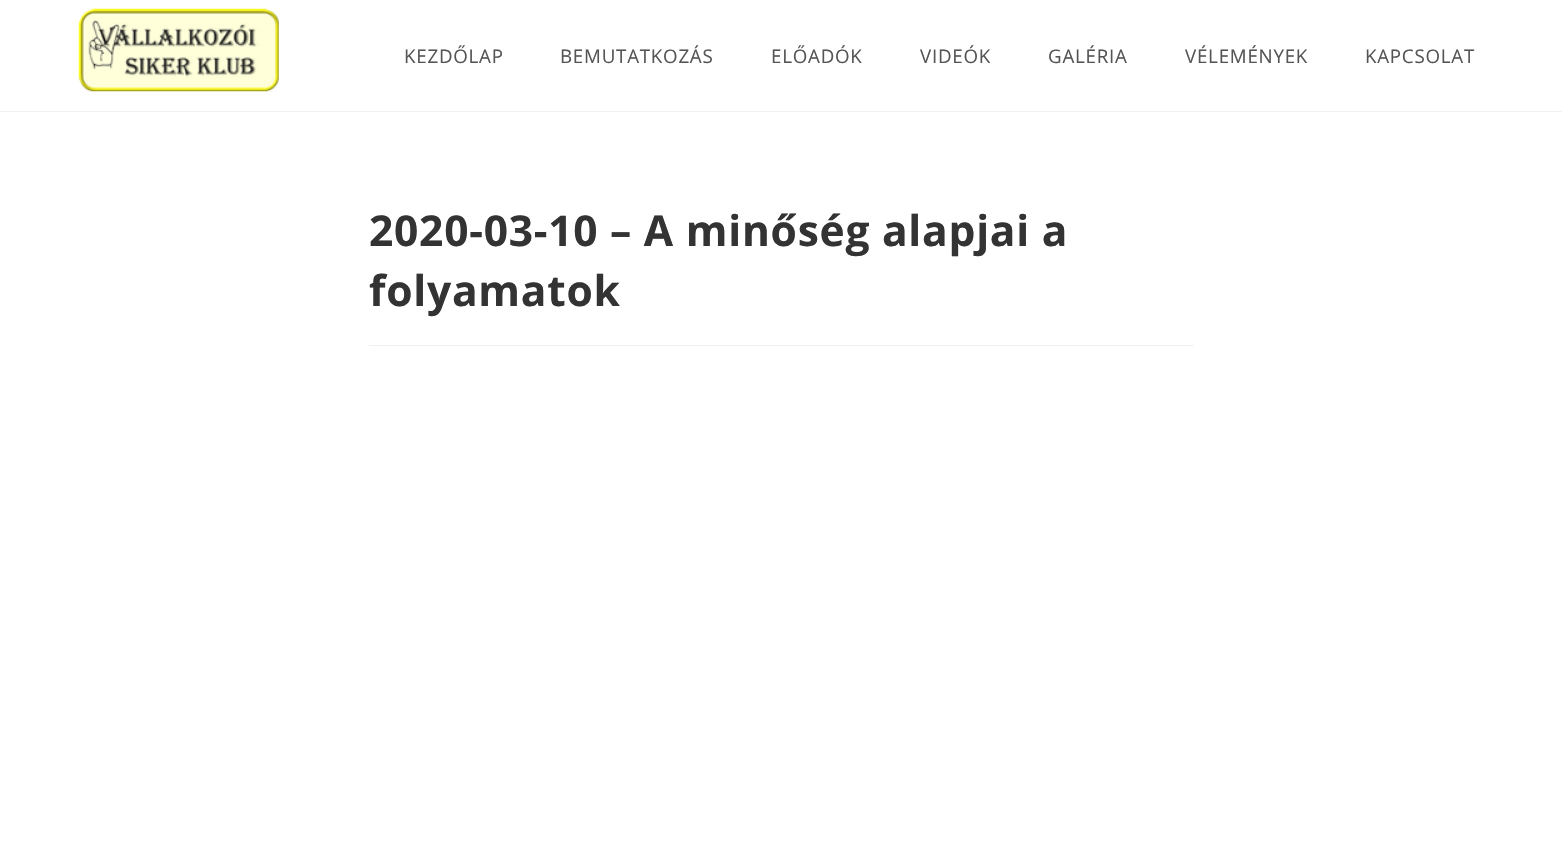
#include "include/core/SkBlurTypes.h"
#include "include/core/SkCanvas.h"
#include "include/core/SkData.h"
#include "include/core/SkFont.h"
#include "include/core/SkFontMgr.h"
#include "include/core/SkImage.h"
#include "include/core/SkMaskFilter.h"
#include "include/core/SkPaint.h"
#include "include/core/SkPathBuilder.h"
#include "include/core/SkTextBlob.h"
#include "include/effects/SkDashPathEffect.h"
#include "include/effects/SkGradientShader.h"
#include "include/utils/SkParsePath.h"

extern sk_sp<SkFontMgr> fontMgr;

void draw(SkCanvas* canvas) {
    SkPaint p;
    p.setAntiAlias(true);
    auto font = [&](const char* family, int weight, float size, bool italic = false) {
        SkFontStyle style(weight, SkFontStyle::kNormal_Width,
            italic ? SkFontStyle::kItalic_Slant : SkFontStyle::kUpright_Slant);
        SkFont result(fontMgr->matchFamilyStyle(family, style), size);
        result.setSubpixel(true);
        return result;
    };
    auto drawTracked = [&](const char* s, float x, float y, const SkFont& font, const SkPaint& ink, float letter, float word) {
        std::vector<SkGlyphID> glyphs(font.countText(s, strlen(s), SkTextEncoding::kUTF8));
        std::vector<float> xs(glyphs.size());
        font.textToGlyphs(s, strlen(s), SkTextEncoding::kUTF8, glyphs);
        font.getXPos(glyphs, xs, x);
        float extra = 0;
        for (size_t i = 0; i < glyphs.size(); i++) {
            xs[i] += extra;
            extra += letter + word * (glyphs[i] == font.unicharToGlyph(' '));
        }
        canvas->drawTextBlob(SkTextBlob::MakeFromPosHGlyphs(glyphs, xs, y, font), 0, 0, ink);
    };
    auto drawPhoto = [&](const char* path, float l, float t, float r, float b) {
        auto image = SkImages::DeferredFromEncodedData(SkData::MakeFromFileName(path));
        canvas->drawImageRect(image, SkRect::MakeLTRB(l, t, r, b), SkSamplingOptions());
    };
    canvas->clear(0xFFFFFFFF);
    p.setColor(0xFFF1F1F1);
    canvas->drawRect(SkRect::MakeLTRB(0, 111, 1562, 112), p);
    drawPhoto("media/1.png", 78, 8, 279, 92);
    auto font1 = font("Open Sans", 400, 18.75f);
    p.setColor(0xFF555555);
    {
        const struct { const char* s; float x, y; } items[] = {
            {"KEZDŐLAP", 404, 63},
            {"BEMUTATKOZÁS", 560, 63},
            {"ELŐADÓK", 771, 63},
            {"VIDEÓK", 920, 63},
            {"GALÉRIA", 1048, 63},
            {"VÉLEMÉNYEK", 1185, 63},
            {"KAPCSOLAT", 1365, 63},
        };
        for (auto [s, x, y] : items) {
            drawTracked(s, x, y, font1, p, 0.75f, 0);
        }
    }
    p.setColor(0xFFF1F1F1);
    canvas->drawRect(SkRect::MakeLTRB(369, 345, 1194, 346), p);
    auto font2 = font("Open Sans", 700, 42.5f);
    p.setColor(0xFF333333);
    drawTracked("2020-03-10 – A minőség alapjai a", 369, 246, font2, p, 0.75f, 0);
    drawTracked("folyamatok", 369, 306, font2, p, 0.75f, 0);
}
